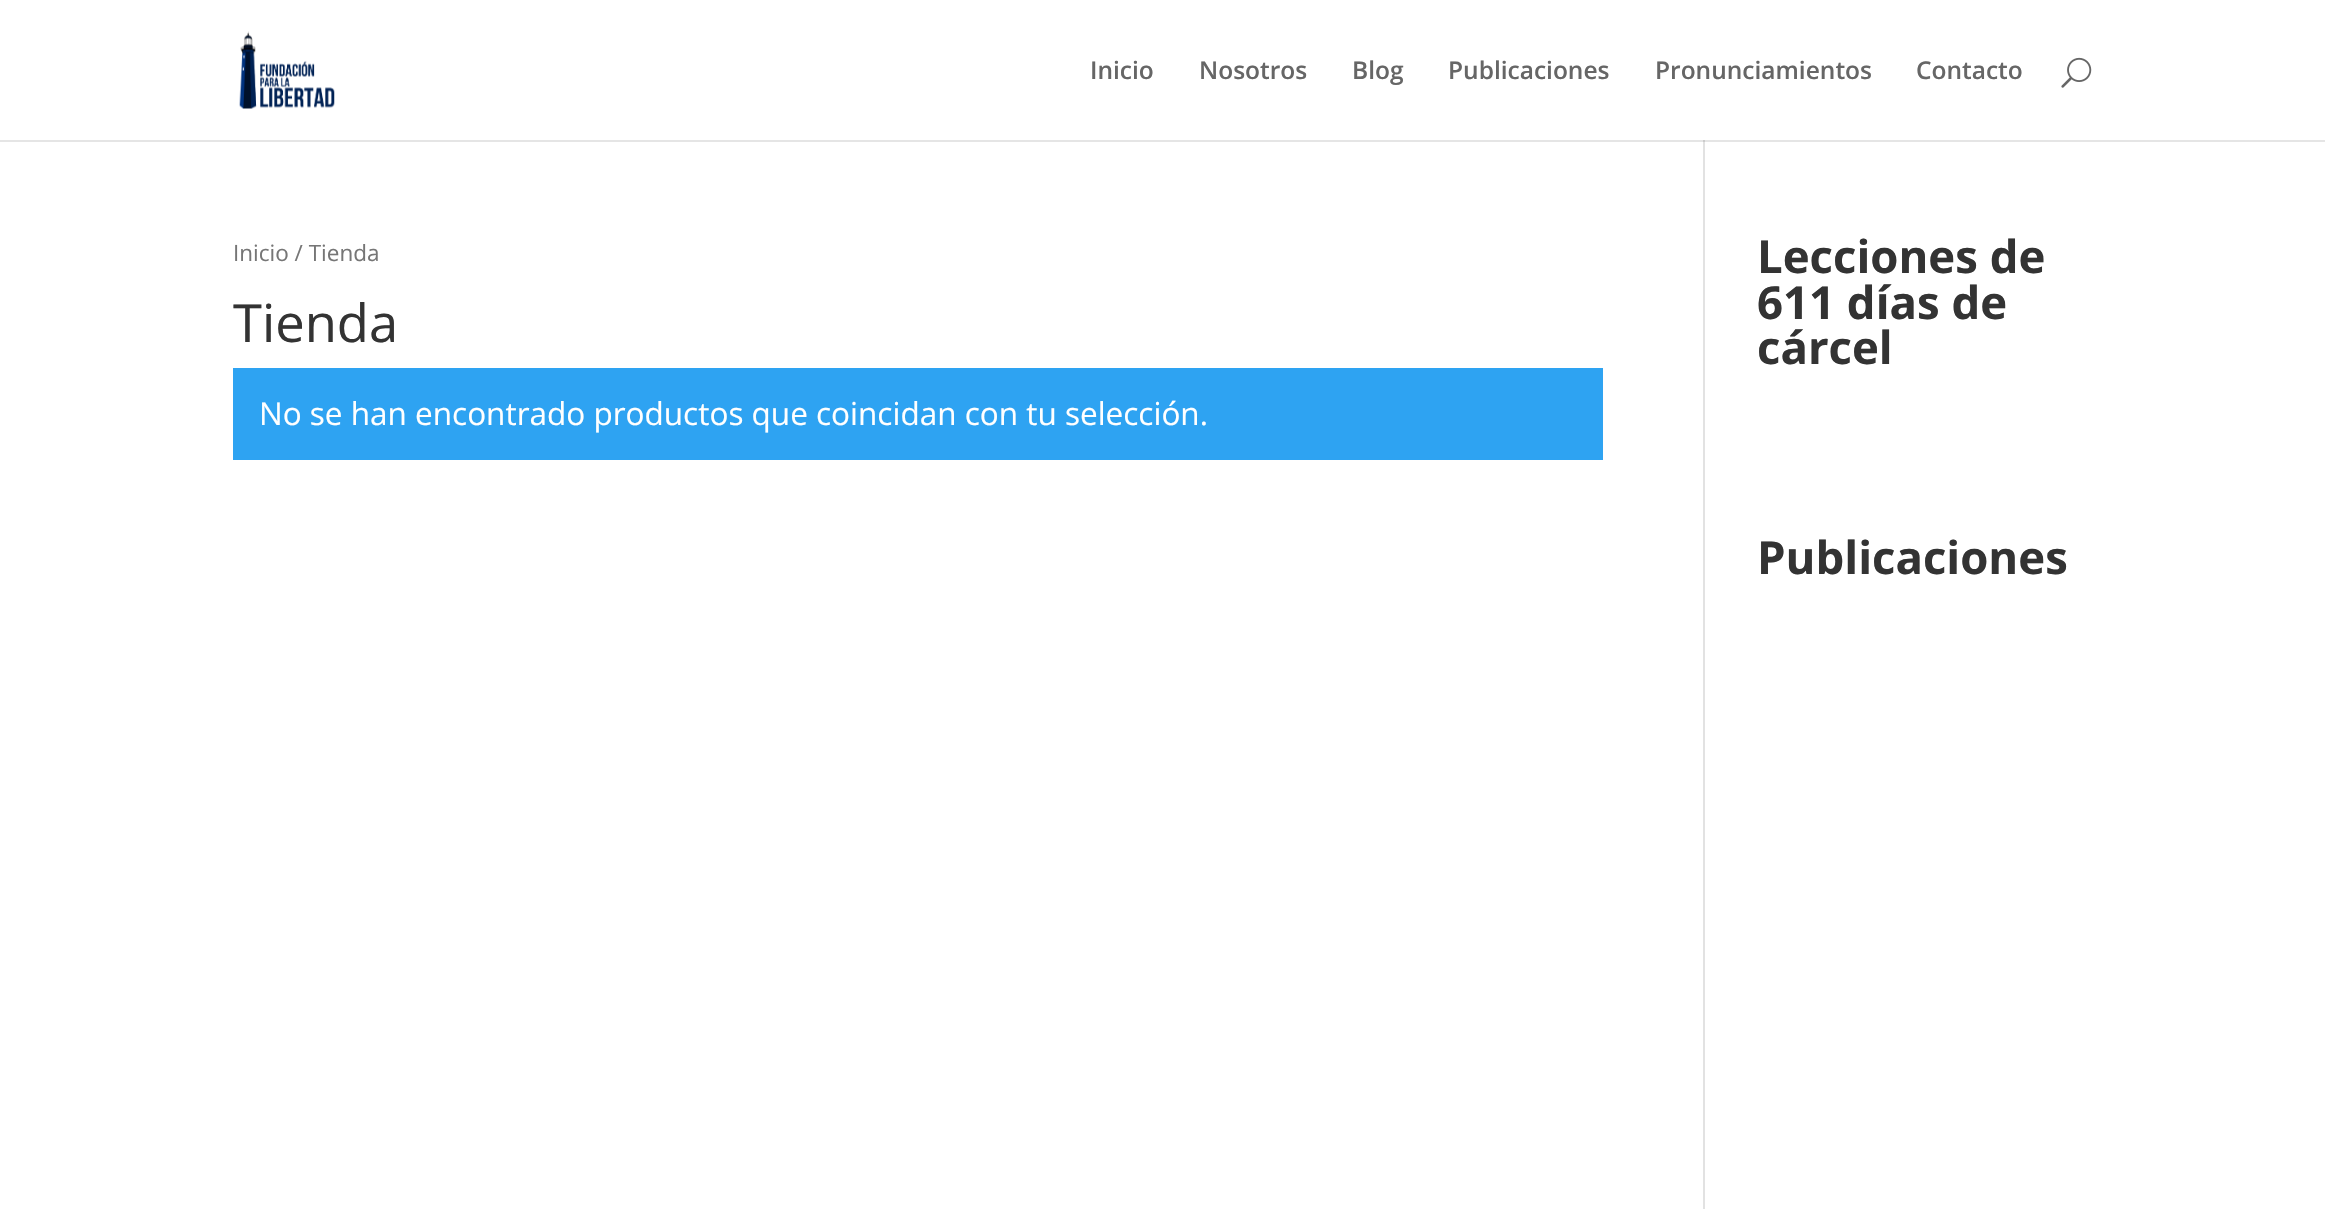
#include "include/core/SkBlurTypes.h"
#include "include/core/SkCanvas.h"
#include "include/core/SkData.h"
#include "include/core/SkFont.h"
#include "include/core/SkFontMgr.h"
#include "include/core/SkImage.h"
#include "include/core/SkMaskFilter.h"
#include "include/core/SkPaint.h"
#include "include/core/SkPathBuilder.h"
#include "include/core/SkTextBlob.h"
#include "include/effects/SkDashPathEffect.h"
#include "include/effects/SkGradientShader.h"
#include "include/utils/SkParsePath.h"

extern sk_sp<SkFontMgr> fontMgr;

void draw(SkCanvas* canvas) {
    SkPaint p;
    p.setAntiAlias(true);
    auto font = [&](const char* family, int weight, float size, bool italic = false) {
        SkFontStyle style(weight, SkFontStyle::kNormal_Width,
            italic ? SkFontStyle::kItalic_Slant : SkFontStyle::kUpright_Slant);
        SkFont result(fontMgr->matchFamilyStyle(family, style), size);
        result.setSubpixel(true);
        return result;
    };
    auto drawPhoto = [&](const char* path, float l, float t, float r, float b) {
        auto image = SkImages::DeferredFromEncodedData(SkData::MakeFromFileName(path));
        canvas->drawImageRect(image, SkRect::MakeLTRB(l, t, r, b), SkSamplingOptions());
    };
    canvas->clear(0xFFFFFFFF);
    p.setColor(0xFFE2E2E2);
    canvas->drawRect(SkRect::MakeLTRB(1703, 140, 1705, 1209), p);
    p.setColor(0x1A000000);
    canvas->drawPath(SkPathBuilder().moveTo(0, 140).lineTo(0, 142).lineTo(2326, 142).lineTo(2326, 2).lineTo(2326, 140).close().detach(), p);
    drawPhoto("media/1.png", 239, 31, 335, 109);
    auto font1 = font("Open Sans", 600, 24.5f);
    p.setColor(0xFF666666);
    {
        const struct { const char* s; float x, y; } items[] = {
            {"Inicio", 1090, 79},
            {"Nosotros", 1199, 79},
            {"Blog", 1352, 79},
            {"Publicaciones", 1448, 79},
            {"Pronunciamientos", 1655, 79},
            {"Contacto", 1916, 79},
        };
        for (auto [s, x, y] : items) {
            canvas->drawString(s, x, y, font1, p);
        }
    }
    drawPhoto("media/2.png", 2061, 57, 2092, 88);
    auto font2 = font("Open Sans", 400, 22.5f);
    p.setColor(0xFF767676);
    canvas->drawString("Inicio / Tienda", 233, 261, font2, p);
    auto font3 = font("Open Sans", 400, 52.5f);
    p.setColor(0xFF333333);
    canvas->drawString("Tienda", 233, 342, font3, p);
    p.setColor(0xFF2EA3F2);
    canvas->drawRect(SkRect::MakeLTRB(233, 368, 1603, 460), p);
    auto font4 = font("Open Sans", 400, 31.5f);
    p.setColor(0xFFFFFFFF);
    canvas->drawString("No se han encontrado productos que coincidan con tu selección.", 259, 425, font4, p);
    auto font5 = font("Open Sans", 700, 45.5f);
    p.setColor(0xFF333333);
    {
        const struct { const char* s; float x, y; } items[] = {
            {"Lecciones de", 1757, 273},
            {"611 días de", 1757, 319},
            {"cárcel", 1757, 364},
            {"Publicaciones", 1757, 574},
        };
        for (auto [s, x, y] : items) {
            canvas->drawString(s, x, y, font5, p);
        }
    }
}
